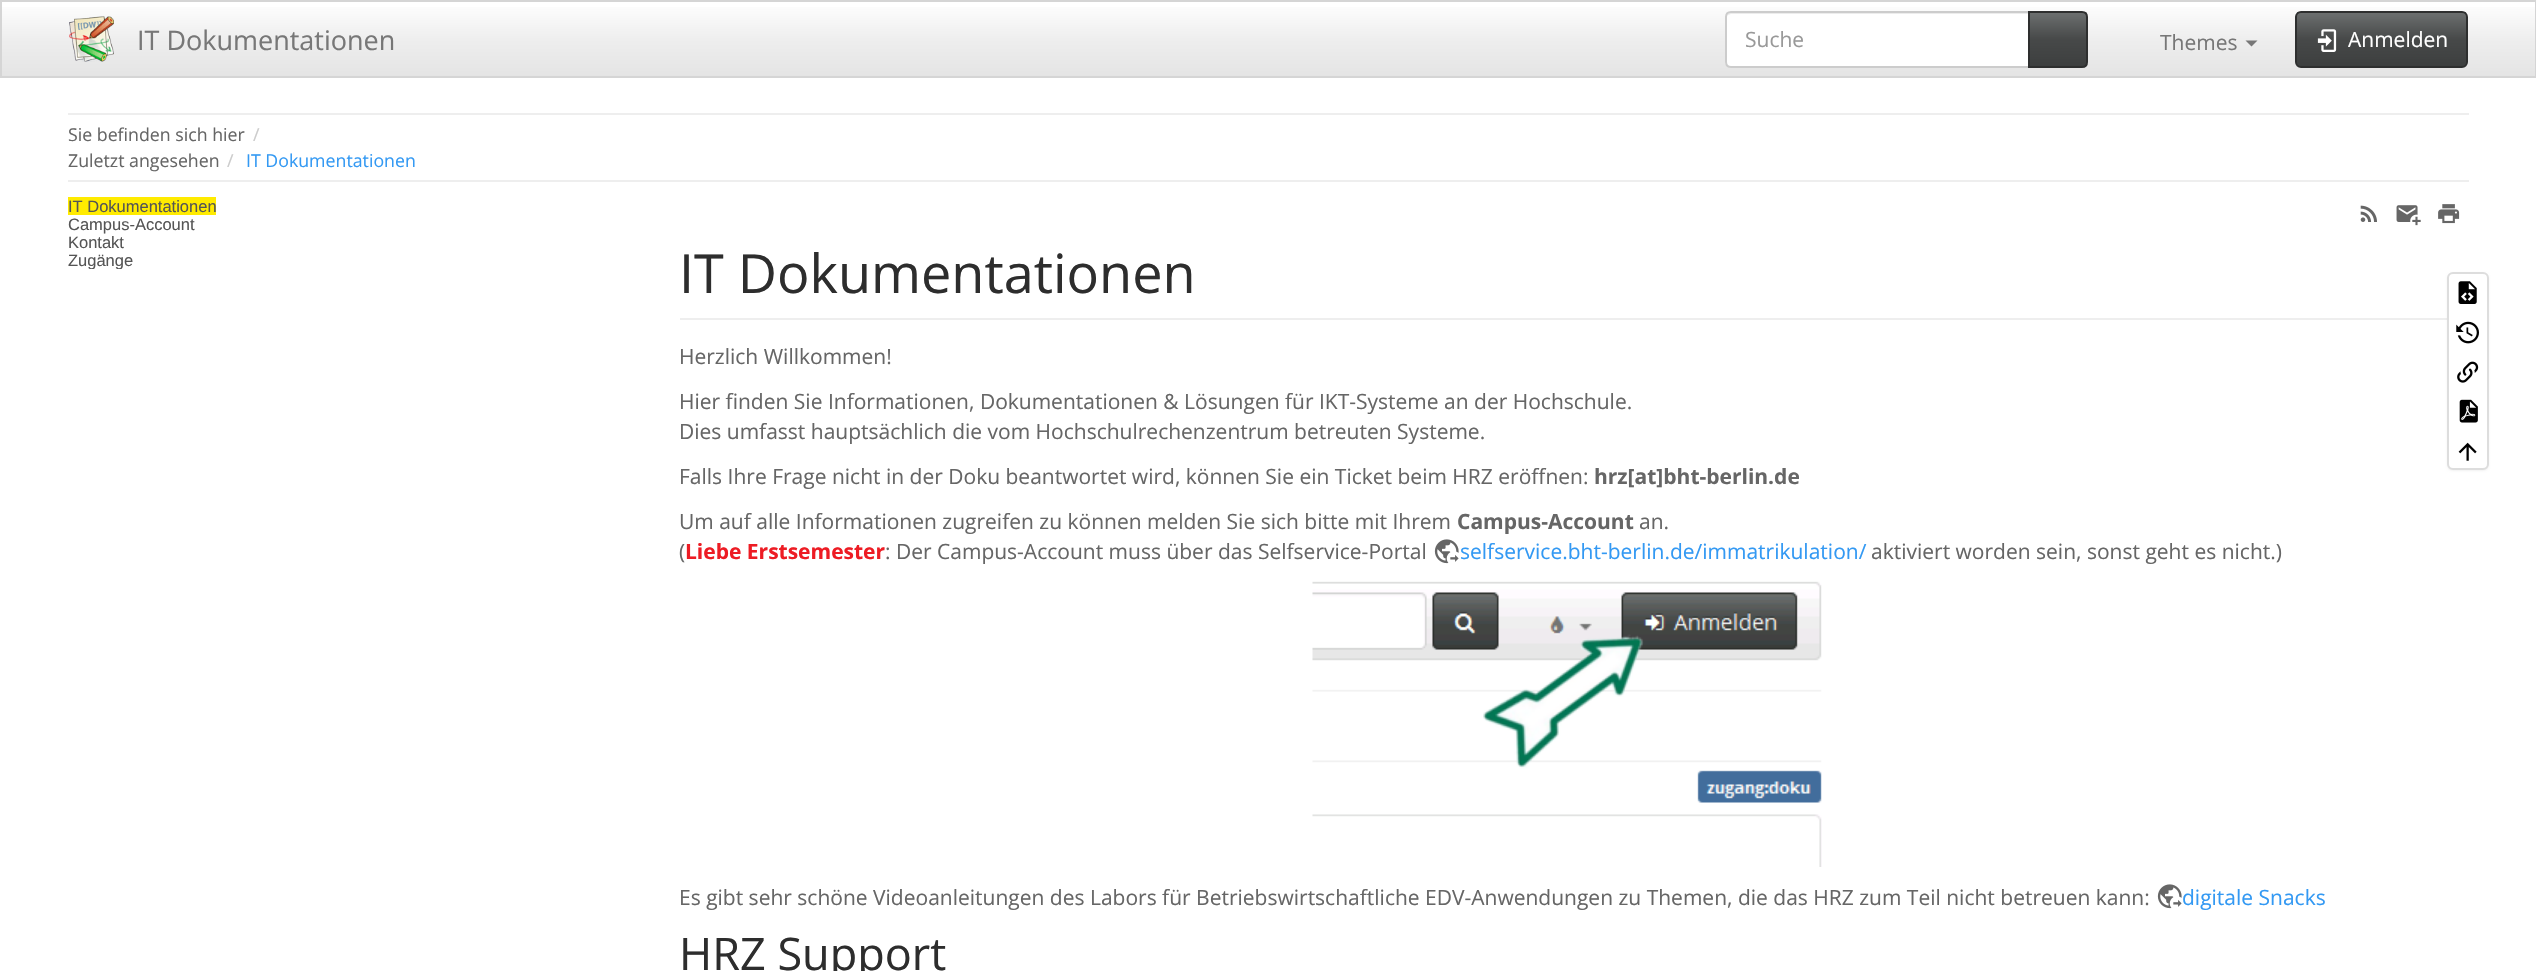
#include "include/core/SkBlurTypes.h"
#include "include/core/SkCanvas.h"
#include "include/core/SkData.h"
#include "include/core/SkFont.h"
#include "include/core/SkFontMgr.h"
#include "include/core/SkImage.h"
#include "include/core/SkMaskFilter.h"
#include "include/core/SkPaint.h"
#include "include/core/SkPathBuilder.h"
#include "include/core/SkTextBlob.h"
#include "include/effects/SkDashPathEffect.h"
#include "include/effects/SkGradientShader.h"
#include "include/utils/SkParsePath.h"

extern sk_sp<SkFontMgr> fontMgr;

void draw(SkCanvas* canvas) {
    SkPaint p;
    p.setAntiAlias(true);
    auto font = [&](const char* family, int weight, float size, bool italic = false) {
        SkFontStyle style(weight, SkFontStyle::kNormal_Width,
            italic ? SkFontStyle::kItalic_Slant : SkFontStyle::kUpright_Slant);
        SkFont result(fontMgr->matchFamilyStyle(family, style), size);
        result.setSubpixel(true);
        return result;
    };
    auto drawPhoto = [&](const char* path, float l, float t, float r, float b) {
        auto image = SkImages::DeferredFromEncodedData(SkData::MakeFromFileName(path));
        canvas->drawImageRect(image, SkRect::MakeLTRB(l, t, r, b), SkSamplingOptions());
    };
    canvas->clear(0xFFFFFFFF);
    {
        const SkColor colors[] = {0xFFFFFFFF, 0xFFEEEEEE, 0xFFE4E4E4};
        const float stops[] = {0, 0.5f, 1};
        const SkPoint ends[] = {{1268, 1.5f}, {1268, 77}};
        p.setShader(SkGradientShader::MakeLinear(ends, colors, stops, 3, SkTileMode::kClamp));
        p.setAlpha(255);
    }
    canvas->drawRect(SkRect::MakeLTRB(2, 7, 2535, 76), p);
    p.setStyle(SkPaint::kStroke_Style);
    p.setStrokeWidth(2);
    p.setShader(nullptr);
    p.setColor(0xFFD5D5D5);
    canvas->drawRect(SkRect::MakeLTRB(1, 1, 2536, 77), p);
    drawPhoto("media/1.png", 69, 16, 114, 62);
    auto font1 = font("Open Sans", 400, 27);
    p.setStyle(SkPaint::kFill_Style);
    p.setColor(0xFF777777);
    canvas->drawString("IT Dokumentationen", 137, 50, font1, p);
    p.setColor(0xFFFFFFFF);
    canvas->drawPath(SkPathBuilder().moveTo(1731, 11).lineTo(2030, 11).lineTo(2030, 68).lineTo(1731, 68).cubicTo(1727.5f, 68, 1725, 65.5f, 1725, 62).lineTo(1725, 17).cubicTo(1725, 13.5f, 1727.5f, 11, 1731, 11).close().detach(), p);
    p.setColor(0xFFECECEC);
    canvas->drawPath(SkPathBuilder().moveTo(1731, 14).lineTo(2028, 14).lineTo(2028, 12).lineTo(1732, 12).cubicTo(1730, 12, 1728, 14, 1727, 16).cubicTo(1728, 15, 1730, 14, 1731, 14).close().detach(), p);
    p.setStyle(SkPaint::kStroke_Style);
    p.setColor(0xFFCCCCCC);
    canvas->drawPath(SkPathBuilder().moveTo(1731, 12).lineTo(2029, 12).lineTo(2029, 67).lineTo(1731, 67).cubicTo(1728, 67, 1726, 65, 1726, 62).lineTo(1726, 17).cubicTo(1726, 14, 1728, 12, 1731, 12).close().detach(), p);
    auto font2 = font("Open Sans", 400, 21);
    p.setStyle(SkPaint::kFill_Style);
    p.setColor(0xFF999999);
    canvas->drawString("Suche", 1745, 47, font2, p);
    canvas->save();
    canvas->clipPath(SkPathBuilder().moveTo(2028, 11).lineTo(2082, 11).cubicTo(2085.5f, 11, 2088, 13.5f, 2088, 17).lineTo(2088, 62).cubicTo(2088, 65.5f, 2085.5f, 68, 2082, 68).lineTo(2028, 68).close().detach(), true);
    {
        const SkColor colors[] = {0xFF6D7070, 0xFF474949, 0xFF3D3F3F};
        const float stops[] = {0, 0.5f, 1};
        const SkPoint ends[] = {{2058, 12}, {2058, 66}};
        p.setShader(SkGradientShader::MakeLinear(ends, colors, stops, 3, SkTileMode::kClamp));
        p.setAlpha(255);
    }
    canvas->drawRect(SkRect::MakeLTRB(2030, 12, 2087, 66), p);
    canvas->restore();
    p.setStyle(SkPaint::kStroke_Style);
    p.setShader(nullptr);
    p.setColor(0xFF2E2F2F);
    canvas->drawPath(SkPathBuilder().moveTo(2029, 12).lineTo(2082, 12).cubicTo(2085, 12, 2087, 14, 2087, 17).lineTo(2087, 62).cubicTo(2087, 65, 2085, 67, 2082, 67).lineTo(2029, 67).close().detach(), p);
    p.setStyle(SkPaint::kFill_Style);
    p.setColor(0xFF777777);
    canvas->drawString("Themes", 2160, 50, font2, p);
    canvas->drawPath(SkPathBuilder().moveTo(2245.5f, 40.5f).lineTo(2257.5f, 40.5f).lineTo(2251.5f, 46.5f).close().detach(), p);
    {
        const SkColor colors[] = {0xFF6D7070, 0xFF474949, 0xFF3D3F3F};
        const float stops[] = {0, 0.5f, 1};
        const SkPoint ends[] = {{2381, 12}, {2381, 66}};
        p.setShader(SkGradientShader::MakeLinear(ends, colors, stops, 3, SkTileMode::kClamp));
        p.setAlpha(255);
    }
    canvas->drawRect(SkRect::MakeLTRB(2297, 12, 2466, 66), p);
    p.setStyle(SkPaint::kStroke_Style);
    p.setShader(nullptr);
    p.setColor(0xFF2E2F2F);
    canvas->drawRoundRect(SkRect::MakeLTRB(2296, 12, 2467, 67), 5, 5, p);
    drawPhoto("media/2.png", 2317, 29, 2337, 52);
    p.setStyle(SkPaint::kFill_Style);
    p.setColor(0xFFFFFFFF);
    canvas->drawString("Anmelden", 2348, 47, font2, p);
    p.setColor(0xFFEEEEEE);
    canvas->drawRect(SkRect::MakeLTRB(68, 113, 2469, 115), p);
    auto font3 = font("Open Sans", 400, 17.75f);
    p.setColor(0xFF666666);
    canvas->drawString("Sie befinden sich hier", 68, 141, font3, p);
    p.setColor(0xFFCCCCCC);
    canvas->drawString("/", 253, 141, font3, p);
    p.setColor(0xFF666666);
    canvas->drawString("Zuletzt angesehen", 68, 167, font3, p);
    p.setColor(0xFFCCCCCC);
    canvas->drawString("/", 227, 167, font3, p);
    p.setColor(0xFF3399F3);
    canvas->drawString("IT Dokumentationen", 246, 167, font3, p);
    p.setColor(0xFFEEEEEE);
    canvas->drawRect(SkRect::MakeLTRB(68, 180, 2469, 182), p);
    p.setColor(0xFFFFEB00);
    canvas->drawRect(SkRect::MakeLTRB(68, 197, 216, 215), p);
    auto font4 = font("Liberation Sans", 400, 16.5f);
    p.setColor(0xFF555555);
    {
        const struct { const char* s; float x, y; } items[] = {
            {"IT Dokumentationen", 68, 212},
            {"Campus-Account", 68, 230},
            {"Kontakt", 68, 248},
        };
        for (auto [s, x, y] : items) {
            canvas->drawString(s, x, y, font4, p);
        }
    }
    canvas->save();
    canvas->clipRect(SkRect::MakeLTRB(68, 197, 635, 269));
    canvas->drawString("Zugänge", 68, 266, font4, p);
    canvas->restore();
    drawPhoto("media/3.png", 2360, 205, 2377, 222);
    drawPhoto("media/4.png", 2396, 205, 2421, 226);
    drawPhoto("media/5.png", 2438, 204, 2460, 224);
    p.setColor(0xFFEEEEEE);
    canvas->drawRect(SkRect::MakeLTRB(680, 318, 2447, 320), p);
    auto font5 = font("Open Sans", 400, 54);
    p.setColor(0xFF2D2D2D);
    canvas->drawString("IT Dokumentationen", 679, 293, font5, p);
    p.setColor(0xFF666666);
    {
        const struct { const char* s; float x, y; } items[] = {
            {"Herzlich Willkommen!", 679, 364},
            {"Hier finden Sie Informationen, Dokumentationen & Lösungen für IKT-Systeme an der Hochschule.", 679, 409},
            {"Dies umfasst hauptsächlich die vom Hochschulrechenzentrum betreuten Systeme.", 679, 439},
            {"Falls Ihre Frage nicht in der Doku beantwortet wird, können Sie ein Ticket beim HRZ eröffnen:", 679, 484},
        };
        for (auto [s, x, y] : items) {
            canvas->drawString(s, x, y, font2, p);
        }
    }
    auto font6 = font("Open Sans", 700, 21);
    canvas->drawString("hrz[at]bht-berlin.de", 1594, 484, font6, p);
    canvas->drawString("Um auf alle Informationen zugreifen zu können melden Sie sich bitte mit Ihrem", 679, 529, font2, p);
    canvas->drawString("Campus-Account", 1457, 529, font6, p);
    canvas->drawString("an.", 1639, 529, font2, p);
    canvas->drawString("(", 679, 559, font2, p);
    p.setColor(0xFFED1C24);
    canvas->drawString("Liebe Erstsemester", 685, 559, font6, p);
    p.setColor(0xFF666666);
    canvas->drawString(": Der Campus-Account muss über das Selfservice-Portal", 885, 559, font2, p);
    drawPhoto("media/6.png", 1434, 539, 1459, 564);
    p.setColor(0xFF3399F3);
    canvas->drawString("selfservice.bht-berlin.de/immatrikulation/", 1460, 559, font2, p);
    p.setColor(0xFF666666);
    canvas->drawString("aktiviert worden sein, sonst geht es nicht.)", 1871, 559, font2, p);
    drawPhoto("media/7.png", 1312, 581, 1822, 867);
    canvas->drawString("Es gibt sehr schöne Videoanleitungen des Labors für Betriebswirtschaftliche EDV-Anwendungen zu Themen, die das HRZ zum Teil nicht betreuen kann:", 679, 905, font2, p);
    drawPhoto("media/6.png", 2157, 884, 2182, 909);
    p.setColor(0xFF3399F3);
    canvas->drawString("digitale Snacks", 2182, 905, font2, p);
    auto font7 = font("Open Sans", 400, 45);
    p.setColor(0xFF2D2D2D);
    canvas->drawString("HRZ Support", 679, 970, font7, p);
    p.setColor(0x0D000000);
    p.setMaskFilter(SkMaskFilter::MakeBlur(kNormal_SkBlurStyle, 1));
    canvas->drawRoundRect(SkRect::MakeLTRB(2447, 273, 2489, 471), 6, 6, p);
    p.setMaskFilter(nullptr);
    p.setColor(0xFFFFFFFF);
    canvas->drawRoundRect(SkRect::MakeLTRB(2448, 273, 2488, 469), 5, 5, p);
    p.setStyle(SkPaint::kStroke_Style);
    p.setColor(0xFFDDDDDD);
    canvas->drawRoundRect(SkRect::MakeLTRB(2448, 273, 2488, 469), 5, 5, p);
    drawPhoto("media/8.png", 2458, 281, 2477, 304);
    drawPhoto("media/9.png", 2456, 321, 2479, 344);
    drawPhoto("media/10.png", 2457, 361, 2479, 383);
    drawPhoto("media/11.png", 2459, 399, 2478, 423);
    drawPhoto("media/12.png", 2458, 442, 2477, 461);
}
